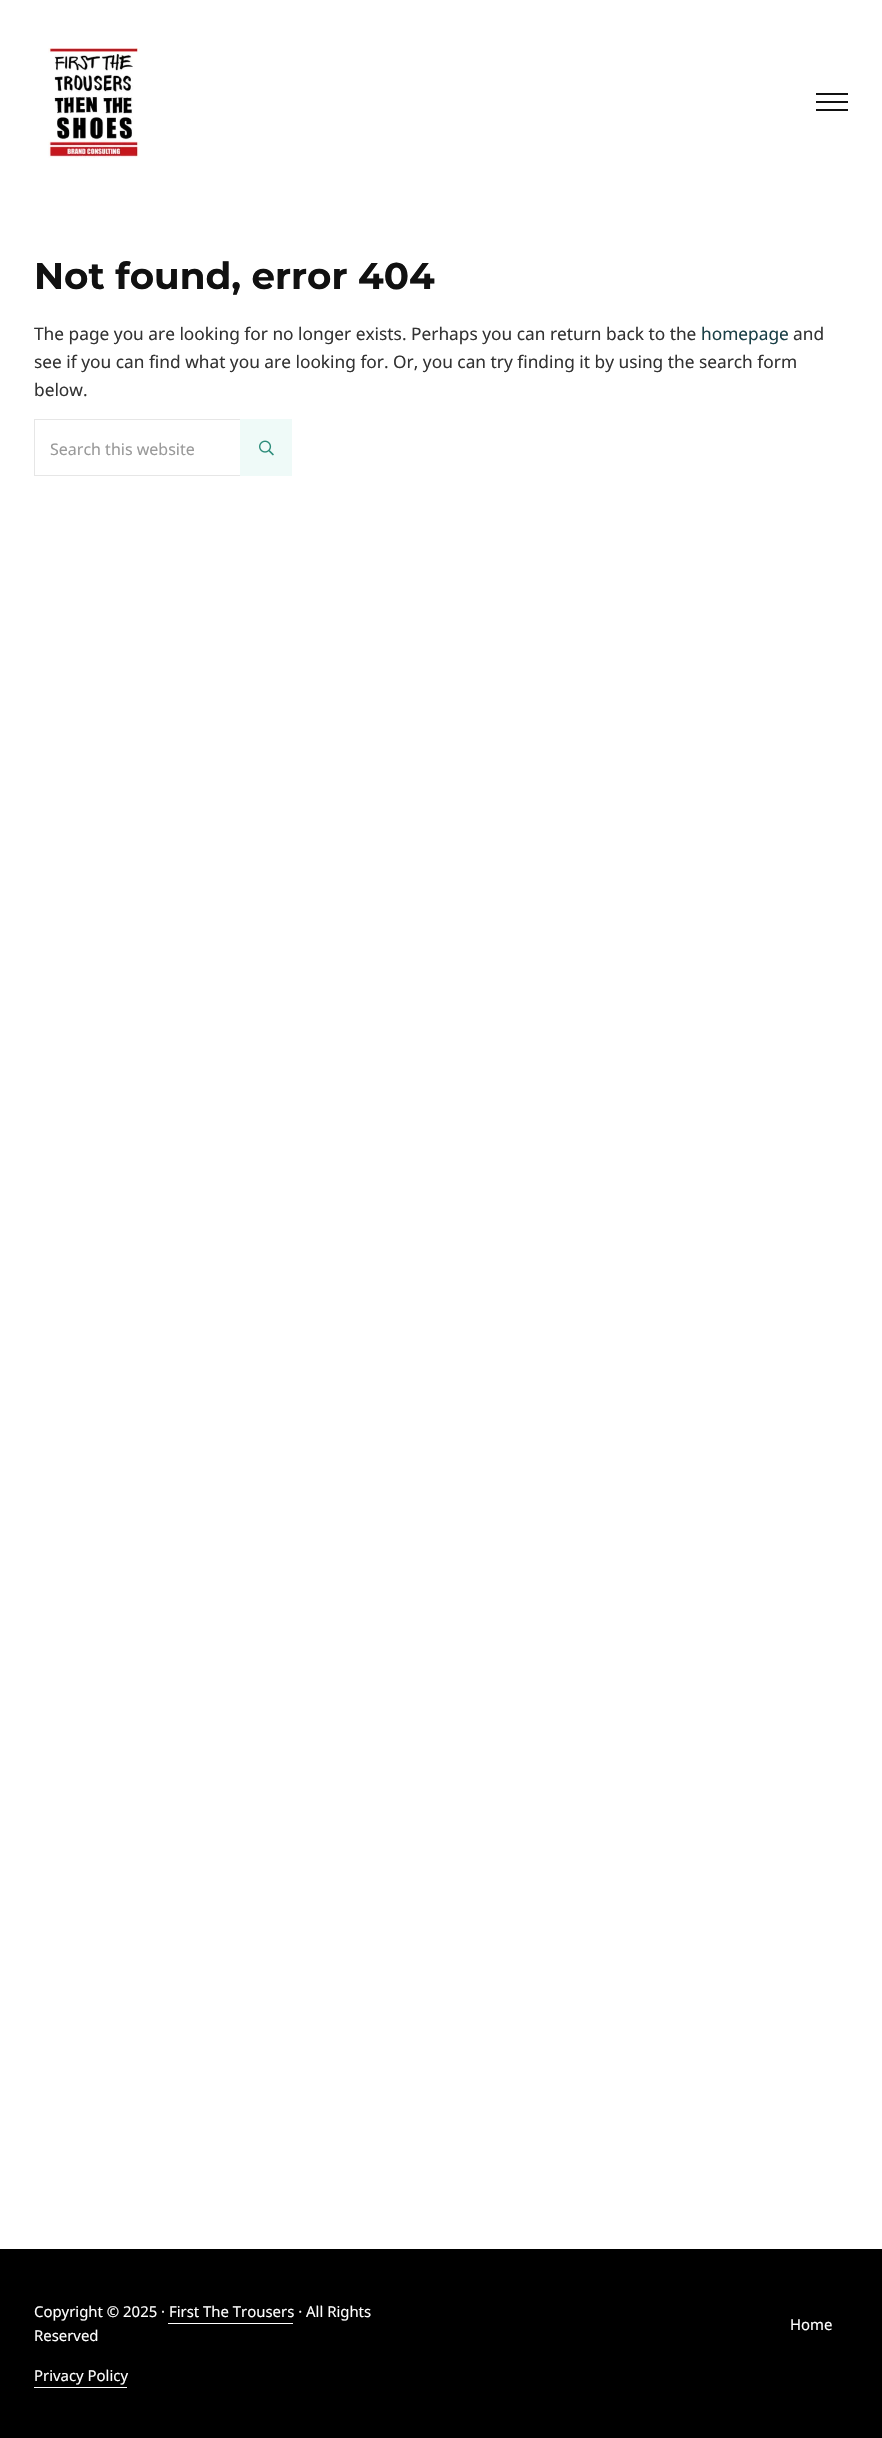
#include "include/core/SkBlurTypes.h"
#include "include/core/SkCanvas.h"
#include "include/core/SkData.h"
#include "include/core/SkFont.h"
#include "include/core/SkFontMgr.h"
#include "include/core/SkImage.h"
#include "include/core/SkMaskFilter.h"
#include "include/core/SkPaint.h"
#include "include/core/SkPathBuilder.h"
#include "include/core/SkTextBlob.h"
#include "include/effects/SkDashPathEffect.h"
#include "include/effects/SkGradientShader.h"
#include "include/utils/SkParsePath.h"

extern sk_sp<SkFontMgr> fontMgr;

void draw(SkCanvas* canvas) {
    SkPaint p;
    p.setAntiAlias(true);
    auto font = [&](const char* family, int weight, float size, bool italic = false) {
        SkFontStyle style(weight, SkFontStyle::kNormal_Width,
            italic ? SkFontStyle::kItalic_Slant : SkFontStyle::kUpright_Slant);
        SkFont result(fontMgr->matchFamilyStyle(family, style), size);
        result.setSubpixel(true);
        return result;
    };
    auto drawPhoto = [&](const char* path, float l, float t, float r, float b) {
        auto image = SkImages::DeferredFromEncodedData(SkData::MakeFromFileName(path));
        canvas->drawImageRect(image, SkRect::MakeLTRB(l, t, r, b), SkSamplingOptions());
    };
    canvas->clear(0xFFFFFFFF);
    drawPhoto("media/1.png", 48, 48, 140, 158);
    {
        const struct { float l, t, r, b; SkColor color; } items[] = {
            {816, 101, 848, 103, 0xFF111111},
            {816, 93, 848, 95, 0xFF111111},
            {816, 109, 848, 111, 0xFF111111},
        };
        for (auto [l, t, r, b, color] : items) {
            p.setColor(color);
            canvas->drawRect(SkRect::MakeLTRB(l, t, r, b), p);
        }
    }
    auto font1 = font("Montserrat", 100, 37.25f);
    canvas->drawString("Not found, error 404", 34, 289, font1, p);
    auto font2 = font("Noto Sans", 400, 17.3f);
    p.setColor(0xFF333333);
    canvas->drawString("The page you are looking for no longer exists. Perhaps you can return back to the", 34, 340, font2, p);
    p.setColor(0xFF1A4047);
    canvas->drawString("homepage", 701, 340, font2, p);
    p.setColor(0xFF333333);
    {
        const struct { const char* s; float x, y; } items[] = {
            {"and", 793, 340},
            {"see if you can find what you are looking for. Or, you can try finding it by using the search form", 34, 368},
            {"below.", 34, 396},
        };
        for (auto [s, x, y] : items) {
            canvas->drawString(s, x, y, font2, p);
        }
    }
    p.setStyle(SkPaint::kStroke_Style);
    p.setStrokeWidth(1);
    p.setColor(0xFFE6E6E6);
    canvas->drawRect(SkRect::MakeLTRB(34.5f, 419.5f, 262.5f, 475.5f), p);
    auto font3 = font("Noto Sans", 400, 16);
    p.setStyle(SkPaint::kFill_Style);
    p.setColor(0xFF999999);
    canvas->drawString("Search this website", 50, 455, font3, p);
    p.setColor(0xFFEFFAF8);
    canvas->drawRect(SkRect::MakeLTRB(240, 419, 292, 476), p);
    drawPhoto("media/2.png", 259, 440, 274, 456);
    p.setColor(0xFF000000);
    canvas->drawRect(SkRect::MakeLTRB(0, 2249, 882, 2438), p);
    auto font4 = font("Noto Sans", 400, 14.9f);
    p.setColor(0xFFFFFFFF);
    canvas->drawString("Copyright © 2025 · First The Trousers · All Rights", 34, 2317, font4, p);
    canvas->drawRect(SkRect::MakeLTRB(168, 2323, 293, 2324), p);
    canvas->drawString("Reserved", 34, 2341, font4, p);
    canvas->drawString("Privacy Policy", 34, 2381, font4, p);
    canvas->drawRect(SkRect::MakeLTRB(34, 2387, 127, 2388), p);
    canvas->drawString("Home", 790, 2330, font4, p);
}
